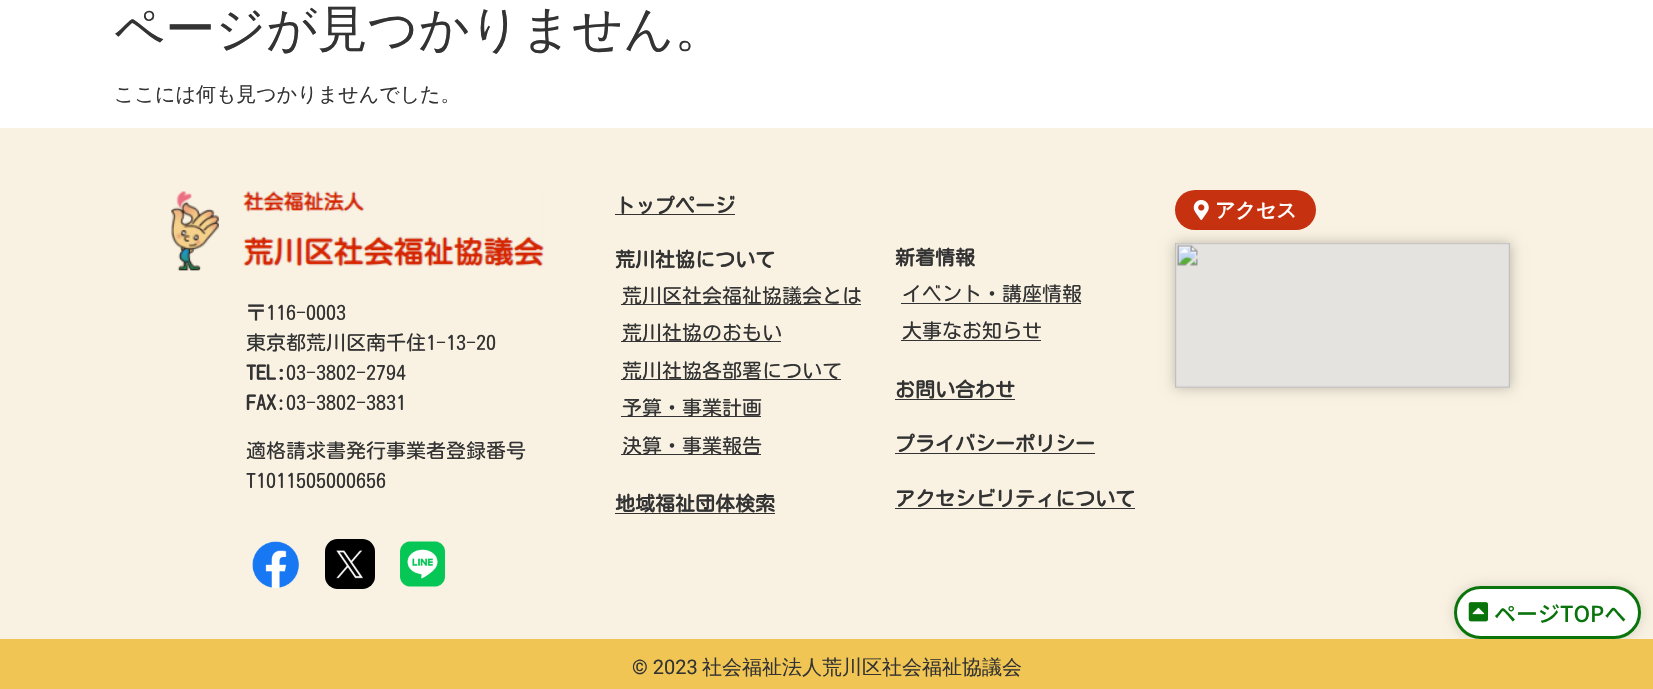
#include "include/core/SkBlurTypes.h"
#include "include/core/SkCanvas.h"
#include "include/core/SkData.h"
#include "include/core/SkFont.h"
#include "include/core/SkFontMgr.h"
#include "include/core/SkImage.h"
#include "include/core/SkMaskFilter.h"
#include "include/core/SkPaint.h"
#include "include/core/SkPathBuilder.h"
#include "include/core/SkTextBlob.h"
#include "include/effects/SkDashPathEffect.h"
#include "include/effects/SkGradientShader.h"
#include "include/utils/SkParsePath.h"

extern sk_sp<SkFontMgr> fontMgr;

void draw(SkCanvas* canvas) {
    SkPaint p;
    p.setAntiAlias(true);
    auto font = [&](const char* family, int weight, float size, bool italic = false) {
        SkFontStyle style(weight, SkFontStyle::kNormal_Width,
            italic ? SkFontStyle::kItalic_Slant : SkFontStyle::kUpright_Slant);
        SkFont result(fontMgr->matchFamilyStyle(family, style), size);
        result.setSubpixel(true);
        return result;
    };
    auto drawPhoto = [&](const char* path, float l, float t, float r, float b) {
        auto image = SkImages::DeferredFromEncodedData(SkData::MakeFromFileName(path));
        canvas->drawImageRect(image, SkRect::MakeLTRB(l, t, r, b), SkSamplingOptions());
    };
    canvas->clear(0xFFFFFFFF);
    auto font1 = font("WenQuanYi Zen Hei", 500, 50);
    p.setColor(0xFF333333);
    canvas->drawString("ページが見つかりません。", 114, 46, font1, p);
    auto font2 = font("WenQuanYi Zen Hei", 500, 20);
    canvas->drawString("ここには何も見つかりませんでした。", 114, 101, font2, p);
    p.setColor(0xFFF9F2E2);
    canvas->drawRect(SkRect::MakeLTRB(0, 128, 1653, 639), p);
    drawPhoto("media/1.png", 171, 191, 544, 271);
    auto font3 = font("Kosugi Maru", 400, 20);
    p.setColor(0xFF333333);
    canvas->drawString("〒116-0003", 246, 320, font3, p);
    canvas->drawString("東京都荒川区南千住1-13-20", 246, 350, font3, p);
    auto font4 = font("Kosugi Maru", 700, 20);
    canvas->drawString("TEL:", 246, 380, font4, p);
    canvas->drawString("03-3802-2794", 286, 380, font3, p);
    canvas->drawString("FAX", 246, 410, font4, p);
    {
        const struct { const char* s; float x, y; } items[] = {
            {":03-3802-3831", 276, 410},
            {"適格請求書発行事業者登録番号", 246, 458},
            {"T1011505000656", 246, 488},
        };
        for (auto [s, x, y] : items) {
            canvas->drawString(s, x, y, font3, p);
        }
    }
    drawPhoto("media/2.png", 252, 541, 300, 588);
    drawPhoto("media/3.png", 325, 539, 375, 589);
    drawPhoto("media/4.png", 400, 541, 445, 587);
    canvas->drawString("トップページ", 615, 213, font4, p);
    canvas->drawRect(SkRect::MakeLTRB(615, 214, 735, 215), p);
    canvas->drawString("荒川社協について", 615, 267, font4, p);
    canvas->drawRect(SkRect::MakeLTRB(621, 304, 861, 305), p);
    canvas->drawString("荒川区社会福祉協議会とは", 622, 303, font3, p);
    canvas->drawRect(SkRect::MakeLTRB(621, 341, 781, 342), p);
    canvas->drawString("荒川社協のおもい", 622, 340, font3, p);
    canvas->drawRect(SkRect::MakeLTRB(621, 379, 841, 380), p);
    canvas->drawString("荒川社協各部署について", 622, 378, font3, p);
    canvas->drawRect(SkRect::MakeLTRB(621, 416, 761, 417), p);
    canvas->drawString("予算・事業計画", 622, 415, font3, p);
    canvas->drawRect(SkRect::MakeLTRB(621, 454, 761, 455), p);
    canvas->drawString("決算・事業報告", 622, 453, font3, p);
    canvas->drawString("地域福祉団体検索", 615, 511, font4, p);
    canvas->drawRect(SkRect::MakeLTRB(615, 513, 775, 514), p);
    canvas->drawString("新着情報", 895, 265, font4, p);
    canvas->drawString("イベント・講座情報", 902, 301, font3, p);
    canvas->drawRect(SkRect::MakeLTRB(901, 303, 1081, 304), p);
    canvas->drawString("大事なお知らせ", 902, 338, font3, p);
    canvas->drawRect(SkRect::MakeLTRB(901, 340, 1041, 341), p);
    canvas->drawString("お問い合わせ", 895, 397, font4, p);
    canvas->drawRect(SkRect::MakeLTRB(895, 399, 1015, 400), p);
    canvas->drawString("プライバシーポリシー", 895, 451, font4, p);
    canvas->drawRect(SkRect::MakeLTRB(895, 453, 1095, 454), p);
    canvas->drawString("アクセシビリティについて", 895, 506, font4, p);
    canvas->drawRect(SkRect::MakeLTRB(895, 508, 1135, 509), p);
    p.setColor(0xFFC63110);
    canvas->drawRoundRect(SkRect::MakeLTRB(1175, 190, 1316, 230), 20, 20, p);
    drawPhoto("media/5.png", 1193, 200, 1209, 220);
    auto font5 = font("WenQuanYi Zen Hei", 700, 20);
    p.setColor(0xFFFFFFFF);
    canvas->drawString("アクセス", 1215, 217, font5, p);
    p.setColor(0x3D000000);
    p.setMaskFilter(SkMaskFilter::MakeBlur(kNormal_SkBlurStyle, 6));
    canvas->drawRect(SkRect::MakeLTRB(1175, 243, 1511, 388), p);
    p.setMaskFilter(nullptr);
    drawPhoto("media/6.png", 1175, 243, 1510, 388);
    p.setColor(0x26000000);
    p.setMaskFilter(SkMaskFilter::MakeBlur(kNormal_SkBlurStyle, 6));
    canvas->drawRoundRect(SkRect::MakeLTRB(1454, 586, 1641, 639), 26.5f, 26.5f, p);
    p.setMaskFilter(nullptr);
    p.setColor(0xFFFFFFFF);
    canvas->drawRoundRect(SkRect::MakeLTRB(1455.5f, 587.5f, 1639.5f, 637.5f), 25, 25, p);
    p.setStyle(SkPaint::kStroke_Style);
    p.setStrokeWidth(3);
    p.setColor(0xFF0A740C);
    canvas->drawRoundRect(SkRect::MakeLTRB(1455.5f, 587.5f, 1639.5f, 637.5f), 25, 25, p);
    drawPhoto("media/7.png", 1468, 602, 1488, 622);
    auto font6 = font("Noto Sans JP", 500, 22);
    p.setStyle(SkPaint::kFill_Style);
    canvas->drawString("ページTOPへ", 1494, 622, font6, p);
    p.setColor(0xFFF0C553);
    canvas->drawRect(SkRect::MakeLTRB(0, 639, 1653, 689), p);
    auto font7 = font("Roboto", 400, 20);
    p.setColor(0xFF333333);
    canvas->drawString("© 2023", 632, 674, font7, p);
    canvas->drawString("社会福祉法人荒川区社会福祉協議会", 702, 674, font2, p);
}
